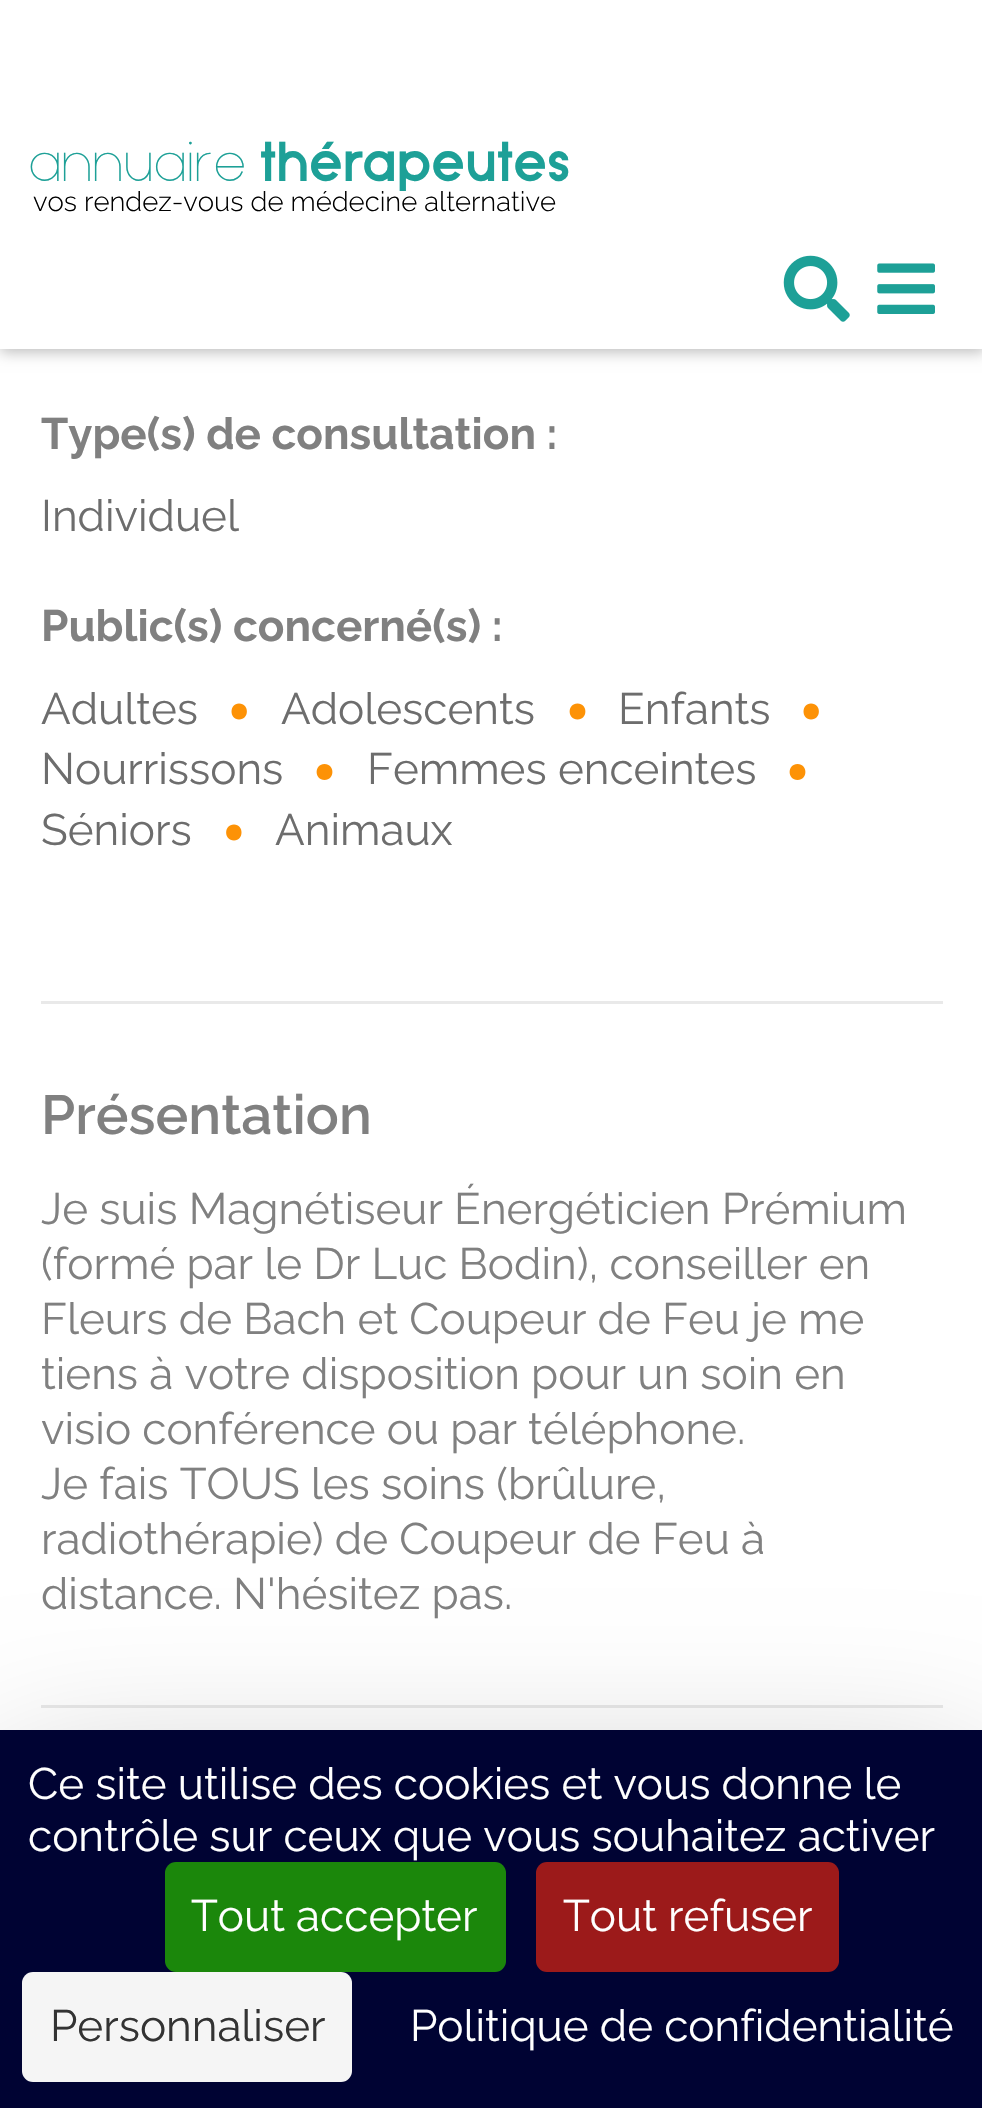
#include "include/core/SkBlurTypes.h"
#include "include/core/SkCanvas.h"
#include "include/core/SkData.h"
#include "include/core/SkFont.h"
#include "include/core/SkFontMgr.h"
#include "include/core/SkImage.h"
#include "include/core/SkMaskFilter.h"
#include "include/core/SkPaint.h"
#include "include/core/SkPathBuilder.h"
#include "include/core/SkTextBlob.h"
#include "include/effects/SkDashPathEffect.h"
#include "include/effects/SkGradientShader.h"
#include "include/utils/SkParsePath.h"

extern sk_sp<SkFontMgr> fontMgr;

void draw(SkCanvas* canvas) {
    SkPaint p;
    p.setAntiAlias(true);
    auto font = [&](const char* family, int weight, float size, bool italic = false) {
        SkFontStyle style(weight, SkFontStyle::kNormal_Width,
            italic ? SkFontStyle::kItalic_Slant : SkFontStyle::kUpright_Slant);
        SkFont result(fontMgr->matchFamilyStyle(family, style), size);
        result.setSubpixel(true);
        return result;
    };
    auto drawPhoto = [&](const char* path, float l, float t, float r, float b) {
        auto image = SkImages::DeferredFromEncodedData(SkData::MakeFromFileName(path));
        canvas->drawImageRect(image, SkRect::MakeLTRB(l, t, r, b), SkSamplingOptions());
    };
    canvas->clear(0xFFFFFFFF);
    p.setColor(0xFFBBBBBB);
    p.setMaskFilter(SkMaskFilter::MakeBlur(kNormal_SkBlurStyle, 7));
    canvas->drawRect(SkRect::MakeLTRB(0, 3, 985, 352), p);
    p.setMaskFilter(nullptr);
    p.setColor(0xFFFFFFFF);
    canvas->drawRect(SkRect::MakeLTRB(0, 0, 982, 349), p);
    auto font1 = font("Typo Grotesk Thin", 100, 55);
    p.setColor(0xFF1DA097);
    canvas->drawString("annuaire", 28, 181, font1, p);
    auto font2 = font("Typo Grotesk", 700, 55);
    canvas->drawString("thérapeutes", 260, 181, font2, p);
    auto font3 = font("Raleway", 300, 27.5f);
    p.setColor(0xFF000000);
    canvas->drawString("vos rendez-vous de médecine alternative", 33, 211, font3, p);
    drawPhoto("media/1.png", 783, 255, 850, 322);
    drawPhoto("media/2.png", 877, 263, 935, 314);
    auto font4 = font("Raleway", 700, 44);
    p.setColor(0xFF808080);
    canvas->drawString("Type(s) de consultation :", 41, 449, font4, p);
    auto font5 = font("Raleway", 400, 44);
    p.setColor(0xFF6D6D6D);
    canvas->drawString("Individuel", 41, 531, font5, p);
    p.setColor(0xFF808080);
    canvas->drawString("Public(s) concerné(s) :", 41, 641, font4, p);
    p.setColor(0xFF6D6D6D);
    canvas->drawString("Adultes", 41, 724, font5, p);
    p.setColor(0xFFFD9206);
    canvas->drawPath(SkPathBuilder().moveTo(239, 703.5f).cubicTo(229, 703.5f, 229, 719.5f, 239, 719.5f).cubicTo(249.5f, 719.5f, 249.5f, 703.5f, 239, 703.5f).close().detach(), p);
    p.setColor(0xFF6D6D6D);
    canvas->drawString("Adolescents", 281, 724, font5, p);
    p.setColor(0xFFFD9206);
    canvas->drawPath(SkPathBuilder().moveTo(577.5f, 703.5f).cubicTo(567, 703.5f, 567, 719.5f, 577.5f, 719.5f).cubicTo(588, 719.5f, 588, 703.5f, 577.5f, 703.5f).close().detach(), p);
    p.setColor(0xFF6D6D6D);
    canvas->drawString("Enfants", 618, 724, font5, p);
    p.setColor(0xFFFD9206);
    canvas->drawPath(SkPathBuilder().moveTo(811, 703.5f).cubicTo(801, 703.5f, 801, 719.5f, 811, 719.5f).cubicTo(821.5f, 719.5f, 821.5f, 703.5f, 811, 703.5f).close().detach(), p);
    p.setColor(0xFF6D6D6D);
    canvas->drawString("Nourrissons", 41, 784, font5, p);
    p.setColor(0xFFFD9206);
    canvas->drawPath(SkPathBuilder().moveTo(324.5f, 764).cubicTo(314, 764, 314, 780, 324.5f, 780).cubicTo(335, 780, 335, 764, 324.5f, 764).close().detach(), p);
    p.setColor(0xFF6D6D6D);
    canvas->drawString("Femmes enceintes", 367, 784, font5, p);
    p.setColor(0xFFFD9206);
    canvas->drawPath(SkPathBuilder().moveTo(797.5f, 764).cubicTo(787, 764, 787, 780, 797.5f, 780).cubicTo(808, 780, 808, 764, 797.5f, 764).close().detach(), p);
    p.setColor(0xFF6D6D6D);
    canvas->drawString("Séniors", 41, 845, font5, p);
    p.setColor(0xFFFD9206);
    canvas->drawPath(SkPathBuilder().moveTo(234, 824.5f).cubicTo(223.5f, 824.5f, 223.5f, 840.5f, 234, 840.5f).cubicTo(244, 840.5f, 244, 824.5f, 234, 824.5f).close().detach(), p);
    p.setColor(0xFF6D6D6D);
    canvas->drawString("Animaux", 275, 845, font5, p);
    p.setColor(0xFFE9E9E9);
    canvas->drawRect(SkRect::MakeLTRB(41, 1001, 943, 1004), p);
    auto font6 = font("Raleway", 600, 55);
    p.setColor(0xFF808080);
    canvas->drawString("Présentation", 41, 1134, font6, p);
    {
        const struct { const char* s; float x, y; } items[] = {
            {"Je suis Magnétiseur Énergéticien Prémium", 41, 1224},
            {"(formé par le Dr Luc Bodin), conseiller en", 41, 1279},
            {"Fleurs de Bach et Coupeur de Feu je me", 41, 1334},
            {"tiens à votre disposition pour un soin en", 41, 1389},
            {"visio conférence ou par téléphone.", 41, 1444},
            {"Je fais TOUS les soins (brûlure,", 41, 1499},
            {"radiothérapie) de Coupeur de Feu à", 41, 1554},
            {"distance. N'hésitez pas.", 41, 1609},
        };
        for (auto [s, x, y] : items) {
            canvas->drawString(s, x, y, font5, p);
        }
    }
    p.setColor(0xFFE9E9E9);
    canvas->drawRect(SkRect::MakeLTRB(41, 1705, 943, 1708), p);
    p.setColor(0x40000000);
    p.setMaskFilter(SkMaskFilter::MakeBlur(kNormal_SkBlurStyle, 82.5f));
    canvas->drawRect(SkRect::MakeLTRB(0, 1785, 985, 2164), p);
    p.setMaskFilter(nullptr);
    p.setColor(0xFF000333);
    canvas->drawRect(SkRect::MakeLTRB(0, 1730, 982, 2108), p);
    p.setColor(0xFFFFFFFF);
    canvas->drawString("Ce site utilise des cookies et vous donne le", 28, 1799, font5, p);
    canvas->drawString("contrôle sur ceux que vous souhaitez activer", 28, 1851, font5, p);
    p.setColor(0xFF1B870B);
    canvas->drawRoundRect(SkRect::MakeLTRB(165, 1862, 506, 1972), 11, 11, p);
    p.setColor(0xFFFFFFFF);
    canvas->drawString("Tout accepter", 191, 1931, font5, p);
    p.setColor(0xFF9C1A1A);
    canvas->drawRoundRect(SkRect::MakeLTRB(536, 1862, 839, 1972), 11, 11, p);
    p.setColor(0xFFFFFFFF);
    canvas->drawString("Tout refuser", 563, 1931, font5, p);
    p.setColor(0xFFF5F5F5);
    canvas->drawRoundRect(SkRect::MakeLTRB(22, 1972, 352, 2082), 11, 11, p);
    p.setColor(0xFF333333);
    canvas->drawString("Personnaliser", 50, 2041, font5, p);
    p.setColor(0xFFFFFFFF);
    canvas->drawString("Politique de confidentialité", 410, 2041, font5, p);
}
